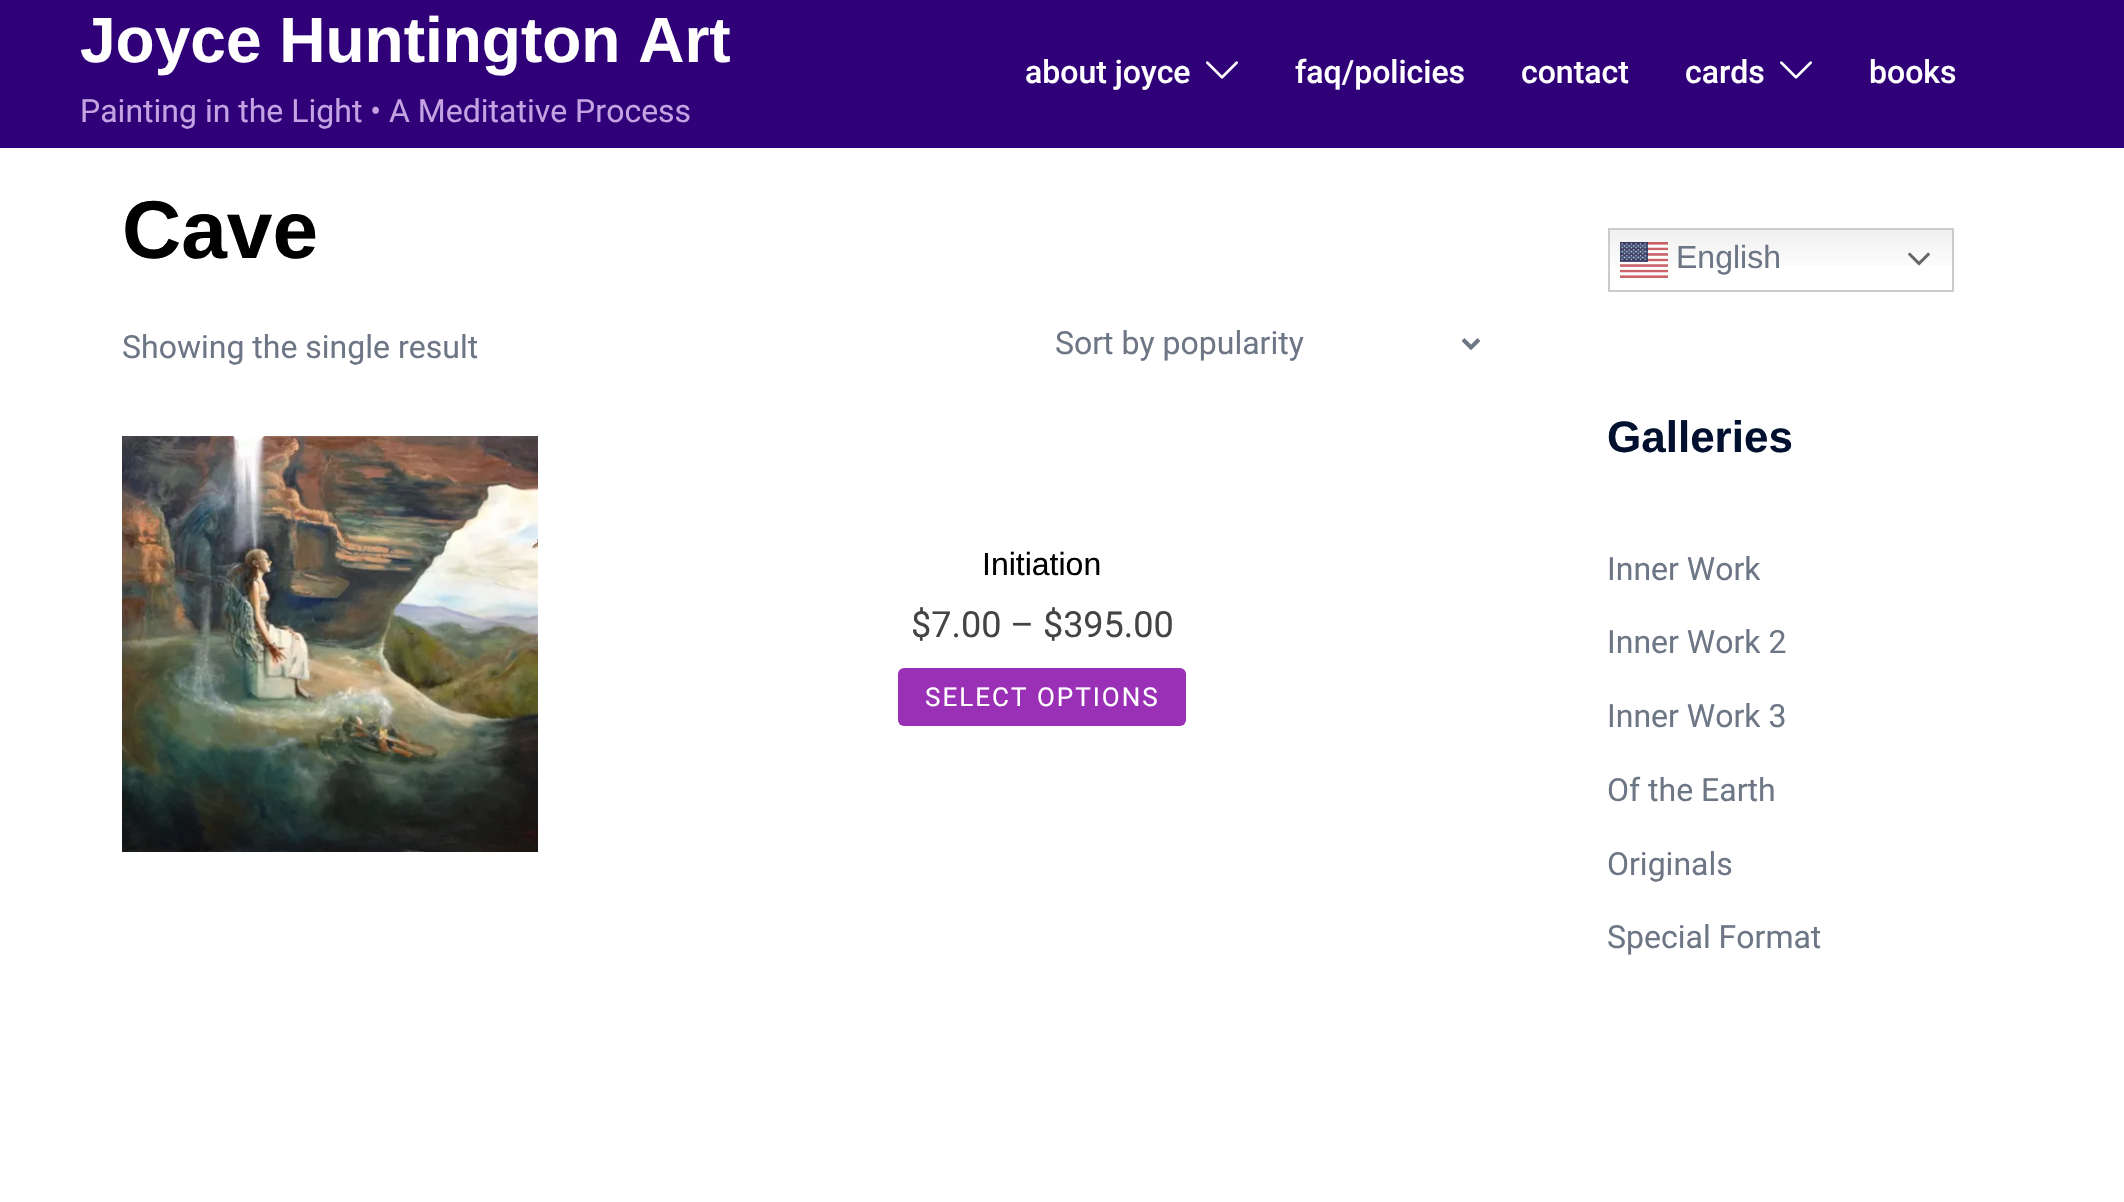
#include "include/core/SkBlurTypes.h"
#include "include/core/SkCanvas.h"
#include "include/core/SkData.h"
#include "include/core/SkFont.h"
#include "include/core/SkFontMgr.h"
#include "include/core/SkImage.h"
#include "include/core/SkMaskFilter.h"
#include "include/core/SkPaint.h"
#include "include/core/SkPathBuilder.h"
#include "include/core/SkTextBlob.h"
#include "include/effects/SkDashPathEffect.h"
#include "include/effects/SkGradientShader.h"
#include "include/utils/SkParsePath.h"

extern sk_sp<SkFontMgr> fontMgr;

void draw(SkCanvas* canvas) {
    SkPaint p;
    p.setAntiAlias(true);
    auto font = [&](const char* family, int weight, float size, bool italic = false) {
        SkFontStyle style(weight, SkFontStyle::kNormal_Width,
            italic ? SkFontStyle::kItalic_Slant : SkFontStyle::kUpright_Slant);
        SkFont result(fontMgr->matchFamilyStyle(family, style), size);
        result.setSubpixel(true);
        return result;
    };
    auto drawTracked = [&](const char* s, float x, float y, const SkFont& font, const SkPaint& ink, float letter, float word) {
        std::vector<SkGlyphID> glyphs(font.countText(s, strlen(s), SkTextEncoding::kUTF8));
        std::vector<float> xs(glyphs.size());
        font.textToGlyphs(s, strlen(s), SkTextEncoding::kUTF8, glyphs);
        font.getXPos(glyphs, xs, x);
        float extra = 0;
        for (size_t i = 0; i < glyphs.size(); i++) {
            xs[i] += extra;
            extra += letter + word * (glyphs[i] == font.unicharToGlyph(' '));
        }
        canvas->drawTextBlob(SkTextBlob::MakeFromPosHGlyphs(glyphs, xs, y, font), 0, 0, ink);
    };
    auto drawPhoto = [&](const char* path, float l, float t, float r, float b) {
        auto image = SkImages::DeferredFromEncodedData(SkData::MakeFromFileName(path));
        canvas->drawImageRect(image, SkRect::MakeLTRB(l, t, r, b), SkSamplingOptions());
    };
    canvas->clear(0xFFFFFFFF);
    p.setColor(0xFF2F0077);
    canvas->drawRect(SkRect::MakeLTRB(0, 0, 2124, 148), p);
    auto font1 = font("Liberation Sans", 700, 64);
    p.setColor(0xFFFFFFFF);
    canvas->drawString("Joyce Huntington Art", 80, 62, font1, p);
    auto font2 = font("Roboto", 400, 32);
    p.setColor(0xFFC3A3E2);
    canvas->drawString("Painting in the Light • A Meditative Process", 80, 122, font2, p);
    auto font3 = font("Roboto", 500, 32);
    p.setColor(0xFFFFFFFF);
    canvas->drawString("about joyce", 1025, 83, font3, p);
    drawPhoto("media/1.png", 1206, 61, 1238, 79);
    {
        const struct { const char* s; float x, y; } items[] = {
            {"faq/policies", 1295, 83},
            {"contact", 1521, 83},
            {"cards", 1685, 83},
        };
        for (auto [s, x, y] : items) {
            canvas->drawString(s, x, y, font3, p);
        }
    }
    drawPhoto("media/1.png", 1780, 61, 1812, 79);
    canvas->drawString("books", 1869, 83, font3, p);
    auto font4 = font("Liberation Sans", 700, 82);
    p.setColor(0xFF000000);
    canvas->drawString("Cave", 122, 258, font4, p);
    p.setColor(0xFF6D7685);
    canvas->drawString("Showing the single result", 122, 358, font2, p);
    p.setStyle(SkPaint::kStroke_Style);
    p.setStrokeWidth(4);
    canvas->drawPath(SkPathBuilder().moveTo(1463, 339.5f).lineTo(1471, 347.5f).lineTo(1479, 339.5f).detach(), p);
    p.setStyle(SkPaint::kFill_Style);
    canvas->drawString("Sort by popularity", 1055, 354, font2, p);
    drawPhoto("media/2.png", 122, 436, 538, 852);
    auto font5 = font("Liberation Sans", 400, 32);
    p.setColor(0xFF000000);
    canvas->drawString("Initiation", 982, 575, font5, p);
    auto font6 = font("Roboto", 400, 36);
    p.setColor(0xFF444444);
    canvas->drawString("$7.00 – $395.00", 911, 637, font6, p);
    p.setColor(0xFF9A30B5);
    canvas->drawRoundRect(SkRect::MakeLTRB(898, 668, 1186, 726), 6, 6, p);
    auto font7 = font("Roboto", 400, 26);
    p.setColor(0xFFFFFFFF);
    drawTracked("SELECT OPTIONS", 925, 706, font7, p, 2, 0);
    {
        const SkColor colors[] = {0xFFEFEFEF, 0xFFFFFFFF};
        const float stops[] = {0, 0.7f};
        const SkPoint ends[] = {{1781, 228}, {1781, 292}};
        p.setShader(SkGradientShader::MakeLinear(ends, colors, stops, 2, SkTileMode::kClamp));
        p.setAlpha(255);
    }
    canvas->drawRect(SkRect::MakeLTRB(1610, 230, 1952, 266), p);
    p.setStyle(SkPaint::kStroke_Style);
    p.setStrokeWidth(2);
    p.setShader(nullptr);
    p.setColor(0xFFCCCCCC);
    canvas->drawRect(SkRect::MakeLTRB(1609, 229, 1953, 291), p);
    drawPhoto("media/3.png", 1620, 242, 1668, 278);
    p.setStyle(SkPaint::kFill_Style);
    p.setColor(0xFF6D7685);
    canvas->drawString("English", 1676, 268, font5, p);
    drawPhoto("media/4.png", 1908, 252, 1930, 266);
    auto font8 = font("Liberation Sans", 700, 44);
    p.setColor(0xFF00102E);
    canvas->drawString("Galleries", 1607, 452, font8, p);
    p.setColor(0xFF6D7685);
    {
        const struct { const char* s; float x, y; } items[] = {
            {"Inner Work", 1607, 580},
            {"Inner Work 2", 1607, 653},
            {"Inner Work 3", 1607, 727},
            {"Of the Earth", 1607, 801},
            {"Originals", 1607, 875},
            {"Special Format", 1607, 948},
        };
        for (auto [s, x, y] : items) {
            canvas->drawString(s, x, y, font2, p);
        }
    }
}
